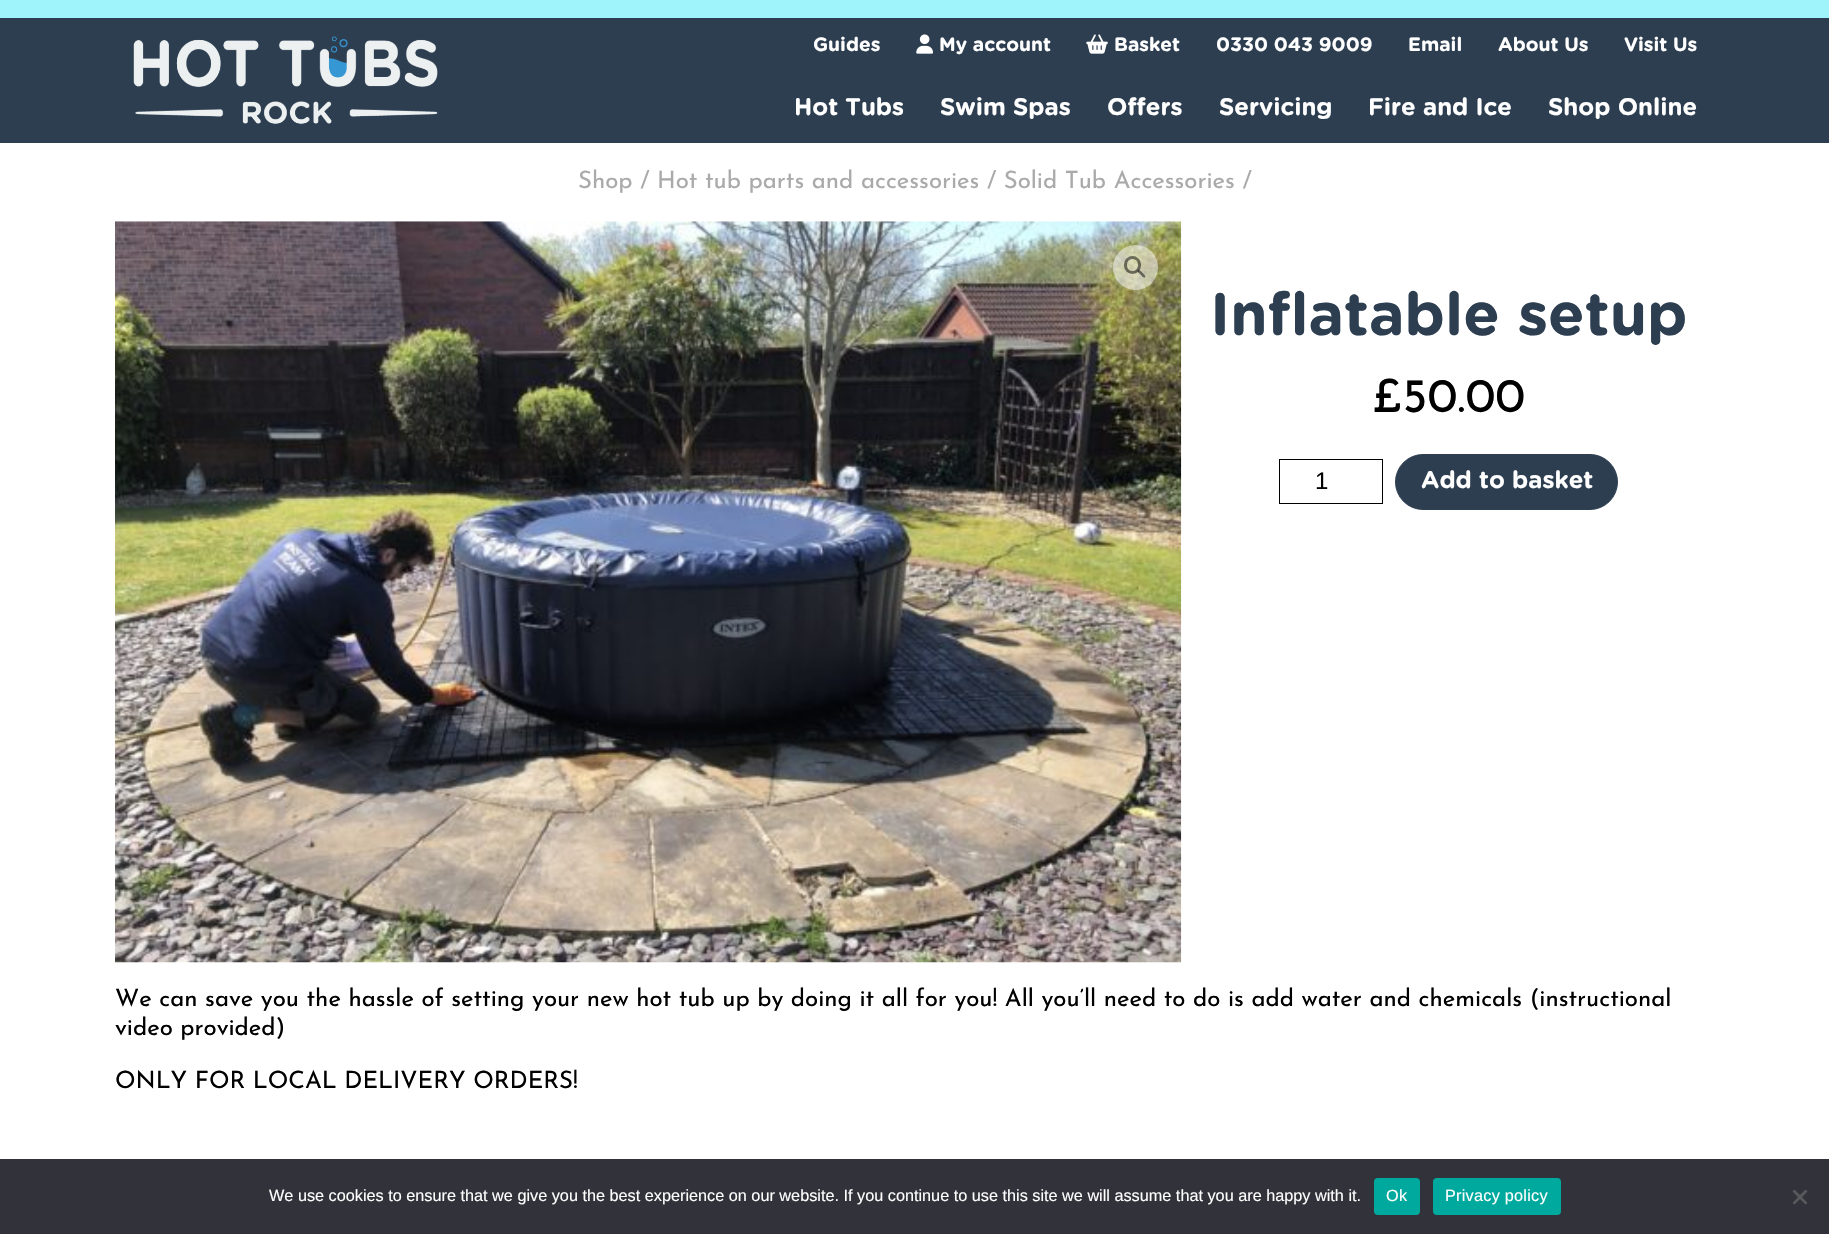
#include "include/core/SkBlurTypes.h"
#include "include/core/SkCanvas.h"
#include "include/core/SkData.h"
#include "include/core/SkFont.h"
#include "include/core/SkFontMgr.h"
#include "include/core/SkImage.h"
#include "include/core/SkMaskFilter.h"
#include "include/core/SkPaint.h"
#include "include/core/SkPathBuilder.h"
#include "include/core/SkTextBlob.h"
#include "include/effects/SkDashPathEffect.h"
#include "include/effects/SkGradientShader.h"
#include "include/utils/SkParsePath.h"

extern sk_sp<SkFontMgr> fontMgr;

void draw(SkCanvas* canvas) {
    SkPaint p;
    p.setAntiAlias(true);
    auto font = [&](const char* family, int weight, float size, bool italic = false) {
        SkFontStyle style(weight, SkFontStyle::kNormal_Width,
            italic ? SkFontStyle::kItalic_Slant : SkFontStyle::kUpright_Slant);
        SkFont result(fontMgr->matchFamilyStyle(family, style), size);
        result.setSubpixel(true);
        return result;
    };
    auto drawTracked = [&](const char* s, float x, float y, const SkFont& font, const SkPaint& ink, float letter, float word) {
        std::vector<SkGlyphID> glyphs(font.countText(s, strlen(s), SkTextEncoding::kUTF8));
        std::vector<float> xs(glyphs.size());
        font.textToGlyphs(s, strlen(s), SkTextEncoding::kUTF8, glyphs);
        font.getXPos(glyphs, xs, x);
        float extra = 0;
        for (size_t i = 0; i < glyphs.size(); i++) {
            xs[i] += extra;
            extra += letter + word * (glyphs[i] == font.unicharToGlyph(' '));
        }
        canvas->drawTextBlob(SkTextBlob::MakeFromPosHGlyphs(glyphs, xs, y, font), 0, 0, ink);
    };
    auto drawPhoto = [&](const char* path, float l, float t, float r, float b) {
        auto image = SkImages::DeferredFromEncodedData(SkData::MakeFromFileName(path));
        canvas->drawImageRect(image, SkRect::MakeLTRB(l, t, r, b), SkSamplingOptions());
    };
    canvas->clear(0xFFFFFFFF);
    p.setColor(0xFF2D3E51);
    canvas->drawRect(SkRect::MakeLTRB(0, 18, 1829, 143), p);
    p.setColor(0xFF9EF4FA);
    canvas->drawRect(SkRect::MakeLTRB(0, 0, 1829, 18), p);
    drawPhoto("media/1.png", 133, 36, 438, 124);
    auto font1 = font("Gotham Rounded", 700, 19.25f);
    p.setColor(0xFFFFFFFF);
    canvas->drawString("Guides", 813, 51, font1, p);
    drawPhoto("media/2.png", 916, 34, 933, 54);
    canvas->drawString("My account", 939, 51, font1, p);
    drawPhoto("media/3.png", 1086, 34, 1108, 54);
    {
        const struct { const char* s; float x, y; } items[] = {
            {"Basket", 1114, 51},
            {"0330 043 9009", 1216, 51},
            {"Email", 1408, 51},
            {"About Us", 1498, 51},
            {"Visit Us", 1624, 51},
        };
        for (auto [s, x, y] : items) {
            canvas->drawString(s, x, y, font1, p);
        }
    }
    auto font2 = font("Gotham Rounded", 700, 24);
    {
        const struct { const char* s; float x, y; } items[] = {
            {"Hot Tubs", 794, 115},
            {"Swim Spas", 940, 115},
            {"Offers", 1107, 115},
            {"Servicing", 1219, 115},
            {"Fire and Ice", 1368, 115},
            {"Shop Online", 1548, 115},
        };
        for (auto [s, x, y] : items) {
            canvas->drawString(s, x, y, font2, p);
        }
    }
    auto font3 = font("Josefin Sans", 100, 24);
    p.setColor(0xFFAAAAAA);
    canvas->drawString("Shop / Hot tub parts and accessories / Solid Tub Accessories /", 578, 188, font3, p);
    drawPhoto("media/4.png", 115, 221, 1182, 963);
    p.setColor(0x80FFFFFF);
    canvas->drawCircle(1135.5f, 267.5f, 22.5f, p);
    p.setStyle(SkPaint::kStroke_Style);
    p.setStrokeWidth(3);
    p.setColor(0x80000000);
    canvas->drawRoundRect(SkRect::MakeLTRB(1125.5f, 257.5f, 1139.5f, 272.5f), 7, 7, p);
    p.setStyle(SkPaint::kFill_Style);
    canvas->drawPath(SkPathBuilder().moveTo(1138, 270).cubicTo(1139.5f, 269, 1141.5f, 272, 1142.5f, 273).cubicTo(1143, 273.5f, 1146.5f, 276, 1145, 277.5f).cubicTo(1143.5f, 278.5f, 1141.5f, 275.5f, 1140.5f, 274.5f).cubicTo(1140, 274, 1136.5f, 271.5f, 1138, 270).close().detach(), p);
    auto font4 = font("Gotham Rounded", 700, 60);
    p.setColor(0xFF2D3E51);
    canvas->drawString("Inflatable setup", 1210, 335, font4, p);
    auto font5 = font("Josefin Sans", 100, 48);
    p.setColor(0xFF000000);
    canvas->drawString("£50.00", 1372, 412, font5, p);
    p.setStyle(SkPaint::kStroke_Style);
    p.setStrokeWidth(1);
    canvas->drawRect(SkRect::MakeLTRB(1279.5f, 459.5f, 1382.5f, 503.5f), p);
    auto font6 = font("Liberation Sans", 400, 24);
    p.setStyle(SkPaint::kFill_Style);
    canvas->drawString("1", 1315, 489, font6, p);
    p.setColor(0xFF2D3E51);
    canvas->drawRoundRect(SkRect::MakeLTRB(1395.5f, 454.5f, 1617.5f, 509.5f), 27.5f, 27.5f, p);
    p.setStyle(SkPaint::kStroke_Style);
    canvas->drawRoundRect(SkRect::MakeLTRB(1395.5f, 454.5f, 1617.5f, 509.5f), 27.5f, 27.5f, p);
    p.setStyle(SkPaint::kFill_Style);
    p.setColor(0xFFFFFFFF);
    canvas->drawString("Add to basket", 1421, 488, font2, p);
    p.setColor(0xFF000000);
    {
        const struct { const char* s; float x, y; } items[] = {
            {"We can save you the hassle of setting your new hot tub up by doing it all for you! All you’ll need to do is add water and chemicals (instructional", 115, 1006},
            {"video provided)", 115, 1035},
            {"ONLY FOR LOCAL DELIVERY ORDERS!", 115, 1088},
        };
        for (auto [s, x, y] : items) {
            canvas->drawString(s, x, y, font3, p);
        }
    }
    p.setColor(0xFF32323A);
    canvas->drawRect(SkRect::MakeLTRB(0, 1159, 1829, 1234), p);
    auto font7 = font("Liberation Sans", 400, 16.25f);
    p.setColor(0xFFFFFFFF);
    canvas->drawString("We use cookies to ensure that we give you the best experience on our website. If you continue to use this site we will assume that you are happy with it.", 269, 1201, font7, p);
    p.setColor(0xFF00A99D);
    canvas->drawRoundRect(SkRect::MakeLTRB(1374, 1178, 1420, 1215), 4, 4, p);
    p.setColor(0xFFFFFFFF);
    drawTracked("Ok", 1386, 1201, font7, p, 0.25f, 0);
    p.setColor(0xFF00A99D);
    canvas->drawRoundRect(SkRect::MakeLTRB(1433, 1178, 1561, 1215), 4, 4, p);
    p.setColor(0xFFFFFFFF);
    drawTracked("Privacy policy", 1445, 1201, font7, p, 0.25f, 0);
    p.setColor(0xFF59595D);
    canvas->drawPath(SkPathBuilder().moveTo(1805.5f, 1189.5f).lineTo(1807.5f, 1191.5f).lineTo(1794.5f, 1204.5f).lineTo(1792.5f, 1203).close().detach(), p);
    canvas->drawPath(SkPathBuilder().moveTo(1792.5f, 1191.5f).lineTo(1794.5f, 1189.5f).lineTo(1807.5f, 1203).lineTo(1805.5f, 1204.5f).close().detach(), p);
}
